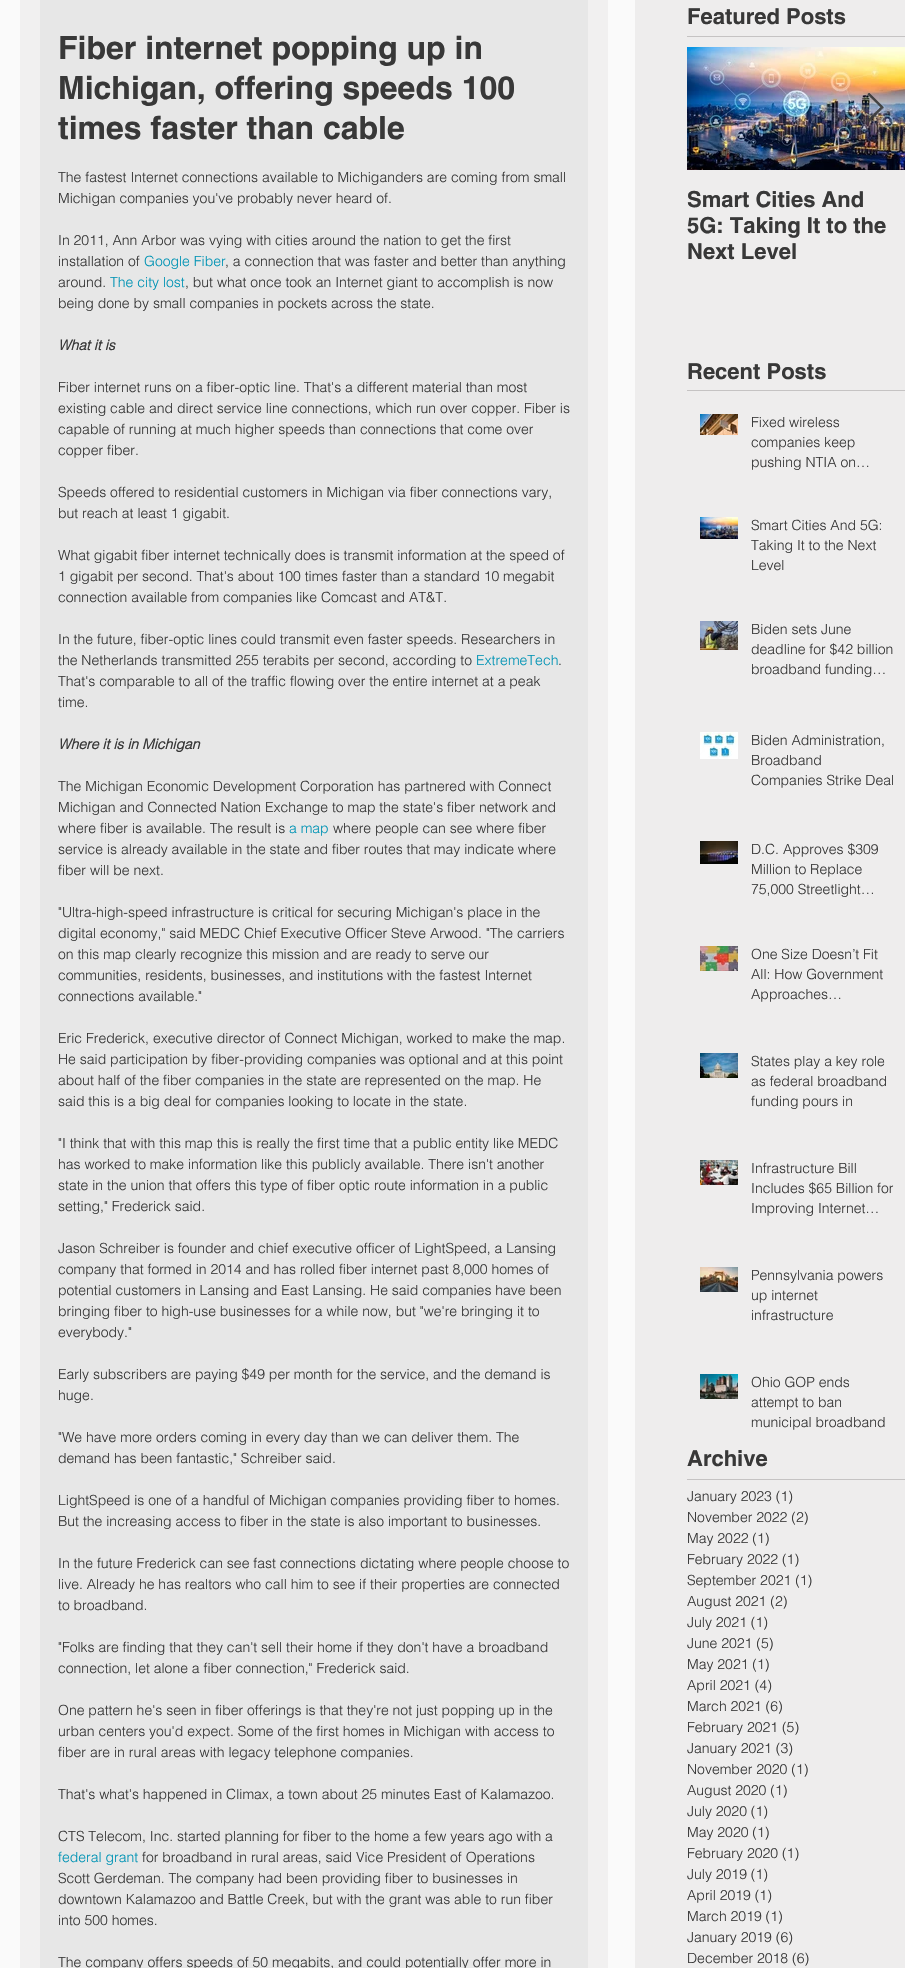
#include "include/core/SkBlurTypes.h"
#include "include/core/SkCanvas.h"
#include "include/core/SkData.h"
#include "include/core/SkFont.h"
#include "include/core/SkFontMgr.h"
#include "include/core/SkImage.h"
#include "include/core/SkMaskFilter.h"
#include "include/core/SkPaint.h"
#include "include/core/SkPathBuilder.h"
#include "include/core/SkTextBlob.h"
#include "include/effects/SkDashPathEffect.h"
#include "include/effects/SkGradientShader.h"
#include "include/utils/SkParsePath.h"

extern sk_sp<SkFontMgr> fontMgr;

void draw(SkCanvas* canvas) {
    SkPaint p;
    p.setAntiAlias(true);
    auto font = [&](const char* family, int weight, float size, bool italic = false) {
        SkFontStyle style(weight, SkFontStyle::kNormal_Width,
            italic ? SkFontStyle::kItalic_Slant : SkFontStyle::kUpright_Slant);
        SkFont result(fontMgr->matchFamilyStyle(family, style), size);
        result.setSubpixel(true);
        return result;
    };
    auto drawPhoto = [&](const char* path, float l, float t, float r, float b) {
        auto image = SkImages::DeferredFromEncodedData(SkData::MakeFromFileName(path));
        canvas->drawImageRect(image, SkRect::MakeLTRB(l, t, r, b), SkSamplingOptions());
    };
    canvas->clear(0xFFFAFAFA);
    p.setColor(0xFFF1F0F0);
    canvas->drawRect(SkRect::MakeLTRB(20, 0, 608, 1968), p);
    p.setColor(0xFFE7E7E7);
    canvas->drawRect(SkRect::MakeLTRB(40, 0, 588, 1968), p);
    auto font1 = font("helvetica", 700, 32);
    p.setColor(0xFF383838);
    {
        const struct { const char* s; float x, y; } items[] = {
            {"Fiber internet popping up in", 58, 59},
            {"Michigan, offering speeds 100", 58, 99},
            {"times faster than cable", 58, 139},
        };
        for (auto [s, x, y] : items) {
            canvas->drawString(s, x, y, font1, p);
        }
    }
    auto font2 = font("helvetica", 300, 14);
    {
        const struct { const char* s; float x, y; } items[] = {
            {"The fastest Internet connections available to Michiganders are coming from small", 58, 182},
            {"Michigan companies you've probably never heard of.", 58, 203},
            {"In 2011, Ann Arbor was vying with cities around the nation to get the first", 58, 245},
            {"installation of", 58, 266},
        };
        for (auto [s, x, y] : items) {
            canvas->drawString(s, x, y, font2, p);
        }
    }
    p.setColor(0xFF0294B5);
    canvas->drawString("Google Fiber", 144, 266, font2, p);
    p.setColor(0xFF383838);
    canvas->drawString(", a connection that was faster and better than anything", 225, 266, font2, p);
    canvas->drawString("around.", 58, 287, font2, p);
    p.setColor(0xFF0294B5);
    canvas->drawString("The city lost", 110, 287, font2, p);
    p.setColor(0xFF383838);
    canvas->drawString(", but what once took an Internet giant to accomplish is now", 185, 287, font2, p);
    canvas->drawString("being done by small companies in pockets across the state.", 58, 308, font2, p);
    auto font3 = font("helvetica", 700, 14, true);
    canvas->drawString("What it is", 58, 350, font3, p);
    {
        const struct { const char* s; float x, y; } items[] = {
            {"Fiber internet runs on a fiber-optic line. That's a different material than most", 58, 392},
            {"existing cable and direct service line connections, which run over copper. Fiber is", 58, 413},
            {"capable of running at much higher speeds than connections that come over", 58, 434},
            {"copper fiber.", 58, 455},
            {"Speeds offered to residential customers in Michigan via fiber connections vary,", 58, 497},
            {"but reach at least 1 gigabit.", 58, 518},
            {"What gigabit fiber internet technically does is transmit information at the speed of", 58, 560},
            {"1 gigabit per second. That's about 100 times faster than a standard 10 megabit", 58, 581},
            {"connection available from companies like Comcast and AT&T.", 58, 602},
            {"In the future, fiber-optic lines could transmit even faster speeds. Researchers in", 58, 644},
            {"the Netherlands transmitted 255 terabits per second, according to", 58, 665},
        };
        for (auto [s, x, y] : items) {
            canvas->drawString(s, x, y, font2, p);
        }
    }
    p.setColor(0xFF0294B5);
    canvas->drawString("ExtremeTech", 476, 665, font2, p);
    p.setColor(0xFF383838);
    {
        const struct { const char* s; float x, y; } items[] = {
            {".", 558, 665},
            {"That's comparable to all of the traffic flowing over the entire internet at a peak", 58, 686},
            {"time.", 58, 707},
        };
        for (auto [s, x, y] : items) {
            canvas->drawString(s, x, y, font2, p);
        }
    }
    canvas->drawString("Where it is in Michigan", 58, 749, font3, p);
    {
        const struct { const char* s; float x, y; } items[] = {
            {"The Michigan Economic Development Corporation has partnered with Connect", 58, 791},
            {"Michigan and Connected Nation Exchange to map the state's fiber network and", 58, 812},
            {"where fiber is available. The result is", 58, 833},
        };
        for (auto [s, x, y] : items) {
            canvas->drawString(s, x, y, font2, p);
        }
    }
    p.setColor(0xFF0294B5);
    canvas->drawString("a map", 289, 833, font2, p);
    p.setColor(0xFF383838);
    {
        const struct { const char* s; float x, y; } items[] = {
            {"where people can see where fiber", 333, 833},
            {"service is already available in the state and fiber routes that may indicate where", 58, 854},
            {"fiber will be next.", 58, 875},
            {"\"Ultra-high-speed infrastructure is critical for securing Michigan's place in the", 58, 917},
            {"digital economy,\" said MEDC Chief Executive Officer Steve Arwood. \"The carriers", 58, 938},
            {"on this map clearly recognize this mission and are ready to serve our", 58, 959},
            {"communities, residents, businesses, and institutions with the fastest Internet", 58, 980},
            {"connections available.\"", 58, 1001},
            {"Eric Frederick, executive director of Connect Michigan, worked to make the map.", 58, 1043},
            {"He said participation by fiber-providing companies was optional and at this point", 58, 1064},
            {"about half of the fiber companies in the state are represented on the map. He", 58, 1085},
            {"said this is a big deal for companies looking to locate in the state.", 58, 1106},
            {"\"I think that with this map this is really the first time that a public entity like MEDC", 58, 1148},
            {"has worked to make information like this publicly available. There isn't another", 58, 1169},
            {"state in the union that offers this type of fiber optic route information in a public", 58, 1190},
            {"setting,\" Frederick said.", 58, 1211},
            {"Jason Schreiber is founder and chief executive officer of LightSpeed, a Lansing", 58, 1253},
            {"company that formed in 2014 and has rolled fiber internet past 8,000 homes of", 58, 1274},
            {"potential customers in Lansing and East Lansing. He said companies have been", 58, 1295},
            {"bringing fiber to high-use businesses for a while now, but \"we're bringing it to", 58, 1316},
            {"everybody.\"", 58, 1337},
            {"Early subscribers are paying $49 per month for the service, and the demand is", 58, 1379},
            {"huge.", 58, 1400},
            {"\"We have more orders coming in every day than we can deliver them. The", 58, 1442},
            {"demand has been fantastic,\" Schreiber said.", 58, 1463},
            {"LightSpeed is one of a handful of Michigan companies providing fiber to homes.", 58, 1505},
            {"But the increasing access to fiber in the state is also important to businesses.", 58, 1526},
            {"In the future Frederick can see fast connections dictating where people choose to", 58, 1568},
            {"live. Already he has realtors who call him to see if their properties are connected", 58, 1589},
            {"to broadband.", 58, 1610},
            {"\"Folks are finding that they can't sell their home if they don't have a broadband", 58, 1652},
            {"connection, let alone a fiber connection,\" Frederick said.", 58, 1673},
            {"One pattern he's seen in fiber offerings is that they're not just popping up in the", 58, 1715},
            {"urban centers you'd expect. Some of the first homes in Michigan with access to", 58, 1736},
            {"fiber are in rural areas with legacy telephone companies.", 58, 1757},
            {"That's what's happened in Climax, a town about 25 minutes East of Kalamazoo.", 58, 1799},
            {"CTS Telecom, Inc. started planning for fiber to the home a few years ago with a", 58, 1841},
        };
        for (auto [s, x, y] : items) {
            canvas->drawString(s, x, y, font2, p);
        }
    }
    p.setColor(0xFF0294B5);
    canvas->drawString("federal grant", 58, 1862, font2, p);
    p.setColor(0xFF383838);
    {
        const struct { const char* s; float x, y; } items[] = {
            {"for broadband in rural areas, said Vice President of Operations", 142, 1862},
            {"Scott Gerdeman. The company had been providing fiber to businesses in", 58, 1883},
            {"downtown Kalamazoo and Battle Creek, but with the grant was able to run fiber", 58, 1904},
            {"into 500 homes.", 58, 1925},
            {"The company offers speeds of 50 megabits, and could potentially offer more in", 58, 1967},
        };
        for (auto [s, x, y] : items) {
            canvas->drawString(s, x, y, font2, p);
        }
    }
    p.setColor(0xFFEEEDED);
    canvas->drawRect(SkRect::MakeLTRB(635, 0, 905, 1968), p);
    auto font4 = font("helvetica", 700, 22);
    p.setColor(0xFF383838);
    canvas->drawString("Featured Posts", 687, 24, font4, p);
    p.setColor(0xFFC5C3C3);
    canvas->drawRect(SkRect::MakeLTRB(687, 36, 905, 37), p);
    drawPhoto("media/2.png", 687, 47, 905, 170);
    drawPhoto("media/1.png", 867, 93, 884, 122);
    p.setColor(0xFF383838);
    {
        const struct { const char* s; float x, y; } items[] = {
            {"Smart Cities And", 687, 207},
            {"5G: Taking It to the", 687, 233},
            {"Next Level", 687, 259},
            {"Recent Posts", 687, 379},
        };
        for (auto [s, x, y] : items) {
            canvas->drawString(s, x, y, font4, p);
        }
    }
    p.setColor(0xFFC5C3C3);
    canvas->drawRect(SkRect::MakeLTRB(687, 390, 905, 391), p);
    drawPhoto("media/3.png", 700, 414, 738, 435);
    p.setColor(0xFF383838);
    {
        const struct { const char* s; float x, y; } items[] = {
            {"Fixed wireless", 751, 427},
            {"companies keep", 751, 447},
            {"pushing NTIA on…", 751, 467},
        };
        for (auto [s, x, y] : items) {
            canvas->drawString(s, x, y, font2, p);
        }
    }
    drawPhoto("media/4.png", 700, 517, 738, 539);
    {
        const struct { const char* s; float x, y; } items[] = {
            {"Smart Cities And 5G:", 751, 530},
            {"Taking It to the Next", 751, 550},
            {"Level", 751, 570},
        };
        for (auto [s, x, y] : items) {
            canvas->drawString(s, x, y, font2, p);
        }
    }
    drawPhoto("media/5.png", 700, 621, 738, 650);
    {
        const struct { const char* s; float x, y; } items[] = {
            {"Biden sets June", 751, 634},
            {"deadline for $42 billion", 751, 654},
            {"broadband funding…", 751, 674},
        };
        for (auto [s, x, y] : items) {
            canvas->drawString(s, x, y, font2, p);
        }
    }
    drawPhoto("media/6.png", 700, 732, 738, 759);
    {
        const struct { const char* s; float x, y; } items[] = {
            {"Biden Administration,", 751, 745},
            {"Broadband", 751, 765},
            {"Companies Strike Deal", 751, 785},
        };
        for (auto [s, x, y] : items) {
            canvas->drawString(s, x, y, font2, p);
        }
    }
    drawPhoto("media/7.png", 700, 841, 738, 864);
    {
        const struct { const char* s; float x, y; } items[] = {
            {"D.C. Approves $309", 751, 854},
            {"Million to Replace", 751, 874},
            {"75,000 Streetlight…", 751, 894},
        };
        for (auto [s, x, y] : items) {
            canvas->drawString(s, x, y, font2, p);
        }
    }
    drawPhoto("media/8.png", 700, 946, 738, 971);
    {
        const struct { const char* s; float x, y; } items[] = {
            {"One Size Doesn’t Fit", 751, 959},
            {"All: How Government", 751, 979},
            {"Approaches…", 751, 999},
        };
        for (auto [s, x, y] : items) {
            canvas->drawString(s, x, y, font2, p);
        }
    }
    drawPhoto("media/9.png", 700, 1053, 738, 1078);
    {
        const struct { const char* s; float x, y; } items[] = {
            {"States play a key role", 751, 1066},
            {"as federal broadband", 751, 1086},
            {"funding pours in", 751, 1106},
        };
        for (auto [s, x, y] : items) {
            canvas->drawString(s, x, y, font2, p);
        }
    }
    drawPhoto("media/10.png", 700, 1160, 738, 1185);
    {
        const struct { const char* s; float x, y; } items[] = {
            {"Infrastructure Bill", 751, 1173},
            {"Includes $65 Billion for", 751, 1193},
            {"Improving Internet…", 751, 1213},
        };
        for (auto [s, x, y] : items) {
            canvas->drawString(s, x, y, font2, p);
        }
    }
    drawPhoto("media/11.png", 700, 1267, 738, 1292);
    {
        const struct { const char* s; float x, y; } items[] = {
            {"Pennsylvania powers", 751, 1280},
            {"up internet", 751, 1300},
            {"infrastructure", 751, 1320},
        };
        for (auto [s, x, y] : items) {
            canvas->drawString(s, x, y, font2, p);
        }
    }
    drawPhoto("media/12.png", 700, 1374, 738, 1399);
    {
        const struct { const char* s; float x, y; } items[] = {
            {"Ohio GOP ends", 751, 1387},
            {"attempt to ban", 751, 1407},
            {"municipal broadband", 751, 1427},
        };
        for (auto [s, x, y] : items) {
            canvas->drawString(s, x, y, font2, p);
        }
    }
    canvas->drawString("Archive", 687, 1466, font4, p);
    p.setColor(0xFFC5C3C3);
    canvas->drawRect(SkRect::MakeLTRB(687, 1479, 905, 1480), p);
    p.setColor(0xFF383838);
    {
        const struct { const char* s; float x, y; } items[] = {
            {"January 2023 (1)", 687, 1501},
            {"November 2022 (2)", 687, 1522},
            {"May 2022 (1)", 687, 1543},
            {"February 2022 (1)", 687, 1564},
            {"September 2021 (1)", 687, 1585},
            {"August 2021 (2)", 687, 1606},
            {"July 2021 (1)", 687, 1627},
            {"June 2021 (5)", 687, 1648},
            {"May 2021 (1)", 687, 1669},
            {"April 2021 (4)", 687, 1690},
            {"March 2021 (6)", 687, 1711},
            {"February 2021 (5)", 687, 1732},
            {"January 2021 (3)", 687, 1753},
            {"November 2020 (1)", 687, 1774},
            {"August 2020 (1)", 687, 1795},
            {"July 2020 (1)", 687, 1816},
            {"May 2020 (1)", 687, 1837},
            {"February 2020 (1)", 687, 1858},
            {"July 2019 (1)", 687, 1879},
            {"April 2019 (1)", 687, 1900},
            {"March 2019 (1)", 687, 1921},
            {"January 2019 (6)", 687, 1942},
            {"December 2018 (6)", 687, 1963},
        };
        for (auto [s, x, y] : items) {
            canvas->drawString(s, x, y, font2, p);
        }
    }
}
